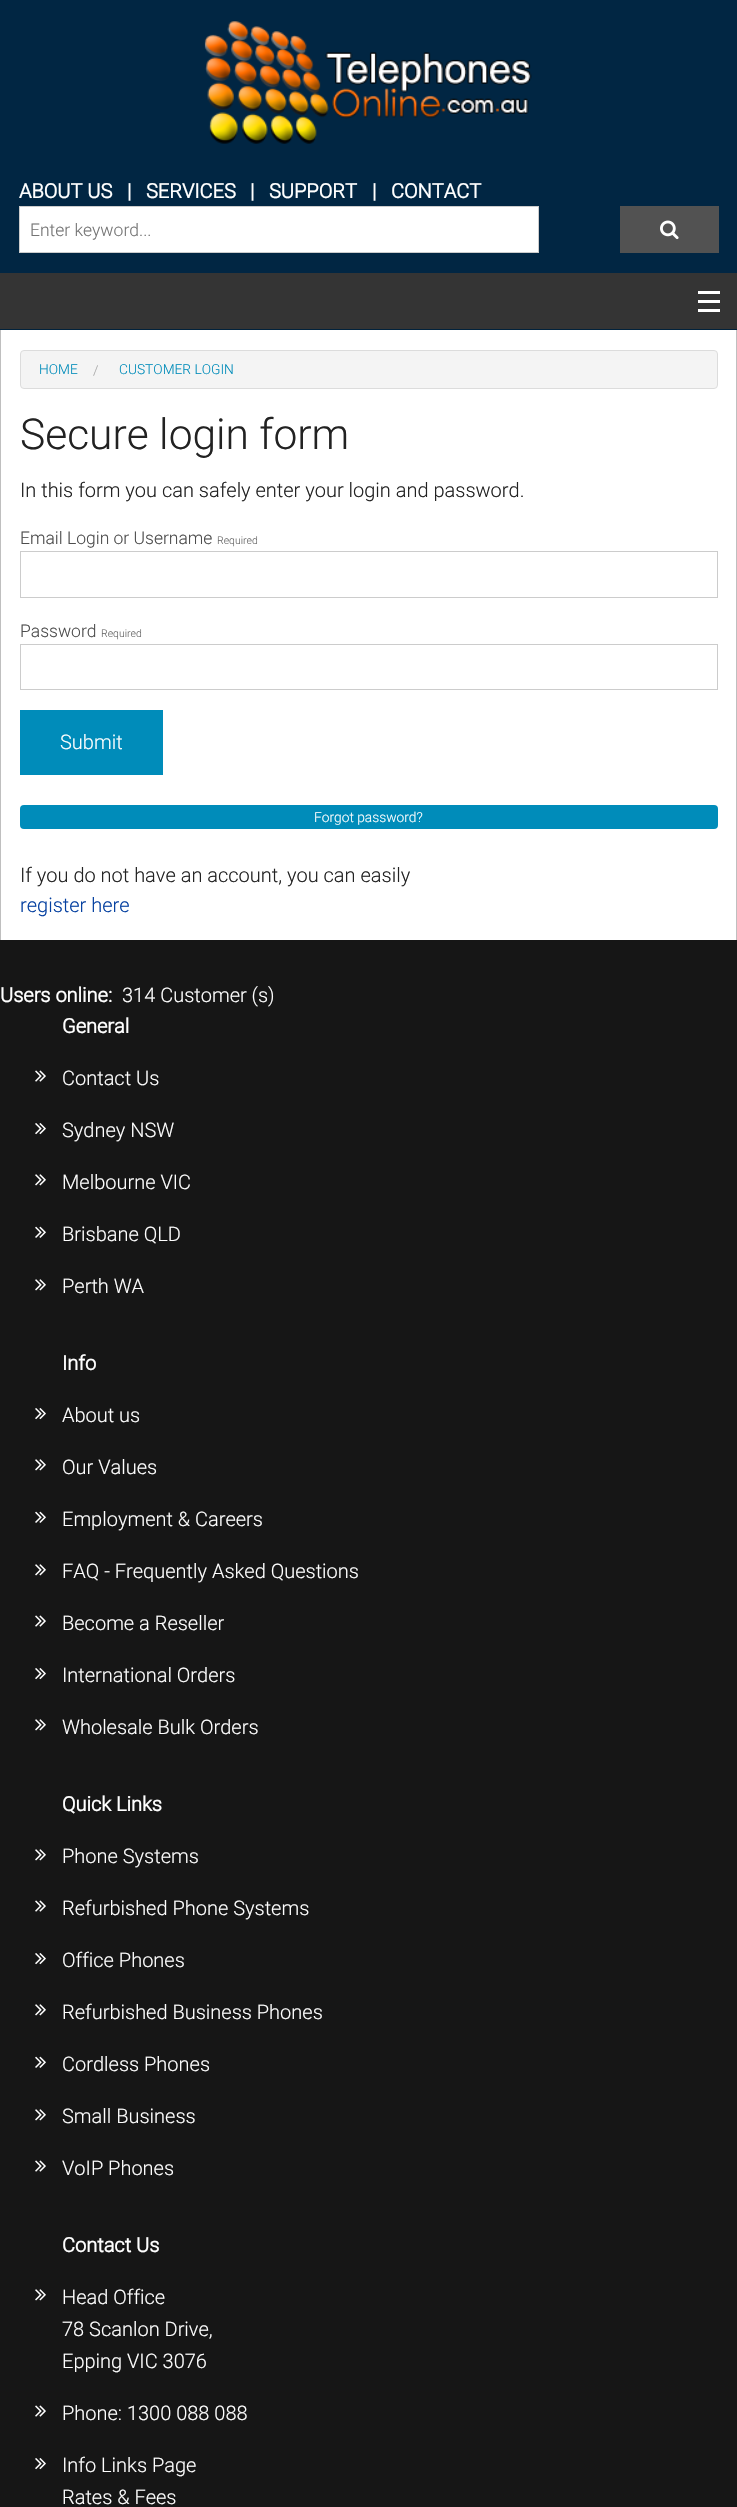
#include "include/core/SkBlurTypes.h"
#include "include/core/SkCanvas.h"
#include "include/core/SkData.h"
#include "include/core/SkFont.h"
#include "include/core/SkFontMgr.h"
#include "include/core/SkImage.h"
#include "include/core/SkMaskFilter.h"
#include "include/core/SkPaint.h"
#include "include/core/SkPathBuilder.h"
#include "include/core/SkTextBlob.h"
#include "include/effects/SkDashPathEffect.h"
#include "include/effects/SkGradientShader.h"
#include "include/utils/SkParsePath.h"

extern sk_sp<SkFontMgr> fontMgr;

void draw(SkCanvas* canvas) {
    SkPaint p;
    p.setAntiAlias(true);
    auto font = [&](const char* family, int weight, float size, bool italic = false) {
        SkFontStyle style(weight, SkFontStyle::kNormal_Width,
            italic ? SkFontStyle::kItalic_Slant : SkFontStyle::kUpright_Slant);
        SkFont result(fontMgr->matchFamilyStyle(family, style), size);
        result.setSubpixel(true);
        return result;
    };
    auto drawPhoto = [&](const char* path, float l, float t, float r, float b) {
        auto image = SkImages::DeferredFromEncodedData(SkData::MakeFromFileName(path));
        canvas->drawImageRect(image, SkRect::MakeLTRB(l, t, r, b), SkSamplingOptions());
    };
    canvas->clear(0xFF161616);
    p.setColor(0xFF012643);
    canvas->drawRect(SkRect::MakeLTRB(0, 0, 737, 273), p);
    p.setColor(0xFF01223C);
    canvas->drawRect(SkRect::MakeLTRB(0, 329, 737, 330), p);
    drawPhoto("media/1.png", 204, 21, 532, 144);
    auto font1 = font("Roboto", 700, 20);
    p.setColor(0xFFFFFFFF);
    {
        const struct { const char* s; float x, y; } items[] = {
            {"ABOUT US", 19, 198},
            {"|", 127, 198},
            {"SERVICES", 146, 198},
            {"|", 250, 198},
            {"SUPPORT", 269, 198},
            {"|", 372, 198},
            {"CONTACT", 391, 198},
        };
        for (auto [s, x, y] : items) {
            canvas->drawString(s, x, y, font1, p);
        }
    }
    canvas->drawRect(SkRect::MakeLTRB(19.5f, 206.5f, 538.5f, 252.5f), p);
    p.setStyle(SkPaint::kStroke_Style);
    p.setStrokeWidth(1);
    p.setColor(0xFFCCCCCC);
    canvas->drawRect(SkRect::MakeLTRB(19.5f, 206.5f, 538.5f, 252.5f), p);
    auto font2 = font("Roboto", 300, 17.5f);
    p.setStyle(SkPaint::kFill_Style);
    p.setColor(0xFF757575);
    canvas->drawString("Enter keyword...", 30, 236, font2, p);
    p.setColor(0xFF525252);
    canvas->drawRect(SkRect::MakeLTRB(620, 206, 719, 253), p);
    drawPhoto("media/2.png", 660, 220, 679, 240);
    {
        const struct { float l, t, r, b; SkColor color; } items[] = {
            {0, 273, 737, 329, 0xFF343434},
            {698, 309, 720, 312, 0xFFFFFFFF},
            {698, 300, 720, 303, 0xFFFFFFFF},
            {698, 291, 720, 294, 0xFFFFFFFF},
            {1, 330, 736, 940, 0xFFFFFFFF},
            {736, 330, 737, 940, 0xFFBFBFBF},
            {0, 330, 1, 940, 0xFFBFBFBF},
        };
        for (auto [l, t, r, b, color] : items) {
            p.setColor(color);
            canvas->drawRect(SkRect::MakeLTRB(l, t, r, b), p);
        }
    }
    p.setColor(0xFFF4F4F4);
    canvas->drawRoundRect(SkRect::MakeLTRB(20.5f, 350.5f, 717.5f, 388.5f), 3.5f, 3.5f, p);
    p.setStyle(SkPaint::kStroke_Style);
    p.setColor(0xFFDCDCDC);
    canvas->drawRoundRect(SkRect::MakeLTRB(20.5f, 350.5f, 717.5f, 388.5f), 3.5f, 3.5f, p);
    auto font3 = font("Roboto", 300, 13.75f);
    p.setStyle(SkPaint::kFill_Style);
    p.setColor(0xFF008CBA);
    canvas->drawString("HOME", 39, 374, font3, p);
    p.setColor(0xFFAAAAAA);
    canvas->drawString("/", 93, 375, font3, p);
    p.setColor(0xFF008CBA);
    canvas->drawString("CUSTOMER LOGIN", 119, 374, font3, p);
    auto font4 = font("Roboto", 300, 42.5f);
    p.setColor(0xFF222222);
    canvas->drawString("Secure login form", 20, 449, font4, p);
    auto font5 = font("Roboto", 300, 20);
    canvas->drawString("In this form you can safely enter your login and password.", 20, 497, font5, p);
    p.setColor(0xFF4D4D4D);
    canvas->drawString("Email Login or Username", 20, 544, font2, p);
    auto font6 = font("Roboto", 300, 10.5f);
    p.setColor(0xFF676767);
    canvas->drawString("Required", 217, 544, font6, p);
    p.setStyle(SkPaint::kStroke_Style);
    p.setColor(0xFFCCCCCC);
    canvas->drawRect(SkRect::MakeLTRB(20.5f, 551.5f, 717.5f, 597.5f), p);
    p.setStyle(SkPaint::kFill_Style);
    p.setColor(0xFF4D4D4D);
    canvas->drawString("Password", 20, 637, font2, p);
    p.setColor(0xFF676767);
    canvas->drawString("Required", 101, 637, font6, p);
    p.setStyle(SkPaint::kStroke_Style);
    p.setColor(0xFFCCCCCC);
    canvas->drawRect(SkRect::MakeLTRB(20.5f, 644.5f, 717.5f, 689.5f), p);
    p.setStyle(SkPaint::kFill_Style);
    p.setColor(0xFF008CBA);
    canvas->drawRect(SkRect::MakeLTRB(20, 710, 163, 775), p);
    p.setColor(0xFFFFFFFF);
    canvas->drawString("Submit", 60, 749, font5, p);
    p.setColor(0xFF008CBA);
    canvas->drawRoundRect(SkRect::MakeLTRB(20, 805, 718, 829), 4, 4, p);
    p.setColor(0xFFFFFFFF);
    canvas->drawString("Forgot password?", 314, 822, font3, p);
    p.setColor(0xFF222222);
    canvas->drawString("If you do not have an account, you can easily", 20, 882, font5, p);
    p.setColor(0xFF043FA0);
    canvas->drawString("register here", 20, 912, font5, p);
    p.setColor(0xFFFFFFFF);
    canvas->drawString("Users online:", 0, 1002, font1, p);
    canvas->drawString("314 Customer (s)", 122, 1002, font5, p);
    canvas->drawString("General", 62, 1033, font1, p);
    drawPhoto("media/3.png", 35, 1070, 46, 1082);
    canvas->drawString("Contact Us", 62, 1085, font5, p);
    drawPhoto("media/4.png", 35, 1123, 46, 1135);
    canvas->drawString("Sydney NSW", 62, 1137, font5, p);
    drawPhoto("media/5.png", 35, 1174, 46, 1186);
    canvas->drawString("Melbourne VIC", 62, 1189, font5, p);
    drawPhoto("media/6.png", 35, 1226, 46, 1238);
    canvas->drawString("Brisbane QLD", 62, 1241, font5, p);
    drawPhoto("media/5.png", 35, 1279, 46, 1291);
    canvas->drawString("Perth WA", 62, 1293, font5, p);
    canvas->drawString("Info", 62, 1370, font1, p);
    drawPhoto("media/4.png", 35, 1408, 46, 1420);
    canvas->drawString("About us", 62, 1422, font5, p);
    drawPhoto("media/5.png", 35, 1459, 46, 1471);
    canvas->drawString("Our Values", 62, 1474, font5, p);
    drawPhoto("media/6.png", 35, 1511, 46, 1523);
    canvas->drawString("Employment & Careers", 62, 1526, font5, p);
    drawPhoto("media/5.png", 35, 1564, 46, 1576);
    canvas->drawString("FAQ - Frequently Asked Questions", 62, 1578, font5, p);
    drawPhoto("media/3.png", 35, 1615, 46, 1627);
    canvas->drawString("Become a Reseller", 62, 1630, font5, p);
    drawPhoto("media/4.png", 35, 1668, 46, 1680);
    canvas->drawString("International Orders", 62, 1682, font5, p);
    drawPhoto("media/5.png", 35, 1719, 46, 1731);
    canvas->drawString("Wholesale Bulk Orders", 62, 1734, font5, p);
    canvas->drawString("Quick Links", 62, 1811, font1, p);
    drawPhoto("media/5.png", 35, 1849, 46, 1861);
    canvas->drawString("Phone Systems", 62, 1863, font5, p);
    drawPhoto("media/3.png", 35, 1900, 46, 1912);
    canvas->drawString("Refurbished Phone Systems", 62, 1915, font5, p);
    drawPhoto("media/4.png", 35, 1953, 46, 1965);
    canvas->drawString("Office Phones", 62, 1967, font5, p);
    drawPhoto("media/5.png", 35, 2004, 46, 2016);
    canvas->drawString("Refurbished Business Phones", 62, 2019, font5, p);
    drawPhoto("media/6.png", 35, 2056, 46, 2068);
    canvas->drawString("Cordless Phones", 62, 2071, font5, p);
    drawPhoto("media/5.png", 35, 2109, 46, 2121);
    canvas->drawString("Small Business", 62, 2123, font5, p);
    drawPhoto("media/3.png", 35, 2160, 46, 2172);
    canvas->drawString("VoIP Phones", 62, 2175, font5, p);
    canvas->drawString("Contact Us", 62, 2252, font1, p);
    drawPhoto("media/5.png", 35, 2289, 46, 2301);
    {
        const struct { const char* s; float x, y; } items[] = {
            {"Head Office", 62, 2304},
            {"78 Scanlon Drive,", 62, 2336},
            {"Epping VIC 3076", 62, 2368},
        };
        for (auto [s, x, y] : items) {
            canvas->drawString(s, x, y, font5, p);
        }
    }
    drawPhoto("media/3.png", 35, 2405, 46, 2417);
    canvas->drawString("Phone: 1300 088 088", 62, 2420, font5, p);
    drawPhoto("media/4.png", 35, 2458, 46, 2470);
    canvas->drawString("Info Links Page", 62, 2472, font5, p);
    canvas->drawString("Rates & Fees", 62, 2504, font5, p);
}
